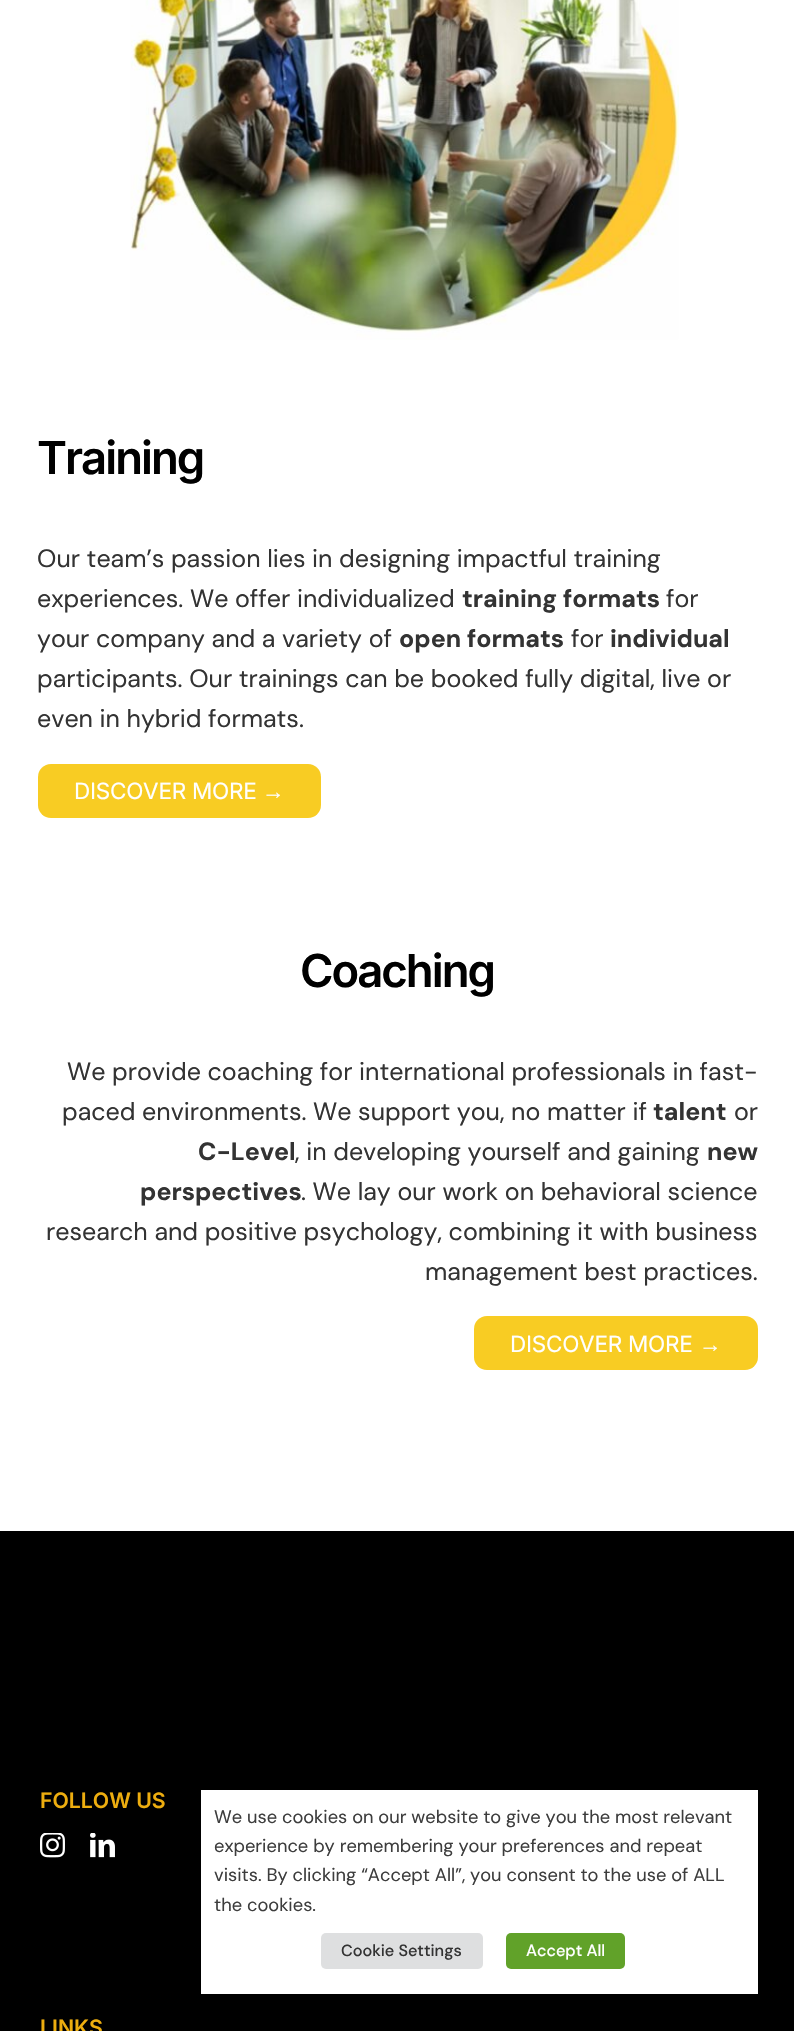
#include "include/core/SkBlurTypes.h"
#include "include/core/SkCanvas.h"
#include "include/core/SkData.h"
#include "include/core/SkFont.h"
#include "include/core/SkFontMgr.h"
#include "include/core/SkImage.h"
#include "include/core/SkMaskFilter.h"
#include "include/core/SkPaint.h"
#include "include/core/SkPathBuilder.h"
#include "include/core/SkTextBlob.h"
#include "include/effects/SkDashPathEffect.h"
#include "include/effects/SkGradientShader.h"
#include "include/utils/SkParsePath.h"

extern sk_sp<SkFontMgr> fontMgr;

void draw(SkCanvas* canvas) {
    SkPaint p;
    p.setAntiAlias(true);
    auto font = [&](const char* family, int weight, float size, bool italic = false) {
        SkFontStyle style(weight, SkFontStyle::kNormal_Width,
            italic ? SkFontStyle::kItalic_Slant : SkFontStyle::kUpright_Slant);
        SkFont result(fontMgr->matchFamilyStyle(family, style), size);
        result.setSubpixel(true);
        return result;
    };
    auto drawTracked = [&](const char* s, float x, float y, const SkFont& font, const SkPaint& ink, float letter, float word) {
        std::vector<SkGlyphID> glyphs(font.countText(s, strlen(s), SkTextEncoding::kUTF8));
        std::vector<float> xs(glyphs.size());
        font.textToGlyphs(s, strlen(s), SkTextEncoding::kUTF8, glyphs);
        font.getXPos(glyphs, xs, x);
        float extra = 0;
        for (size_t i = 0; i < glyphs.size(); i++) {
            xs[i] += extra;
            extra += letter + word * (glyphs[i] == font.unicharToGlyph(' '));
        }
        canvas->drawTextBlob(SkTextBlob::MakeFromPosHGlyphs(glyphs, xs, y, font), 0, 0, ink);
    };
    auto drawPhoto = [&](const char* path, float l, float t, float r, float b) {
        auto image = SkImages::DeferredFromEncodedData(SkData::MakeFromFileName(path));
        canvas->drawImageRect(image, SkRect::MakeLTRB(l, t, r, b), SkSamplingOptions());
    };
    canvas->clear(0xFFFFFFFF);
    drawPhoto("media/1.png", 130, 0, 679, 340);
    auto font1 = font("Inter", 600, 45.5f);
    p.setColor(0xFF000000);
    drawTracked("Training", 37, 474, font1, p, -2, 0);
    auto font2 = font("DM Sans", 400, 25);
    p.setColor(0xFF333333);
    canvas->drawString("Our team’s passion lies in designing impactful training", 37, 567, font2, p);
    canvas->drawString("experiences. We offer individualized", 37, 607, font2, p);
    auto font3 = font("DM Sans", 700, 25);
    canvas->drawString("training formats", 462, 607, font3, p);
    canvas->drawString("for", 666, 607, font2, p);
    canvas->drawString("your company and a variety of", 37, 647, font2, p);
    canvas->drawString("open formats", 399, 647, font3, p);
    canvas->drawString("for", 571, 647, font2, p);
    canvas->drawString("individual", 610, 647, font3, p);
    canvas->drawString("participants. Our trainings can be booked fully digital, live or", 37, 687, font2, p);
    canvas->drawString("even in hybrid formats.", 37, 727, font2, p);
    p.setColor(0xFFF8CC23);
    canvas->drawRoundRect(SkRect::MakeLTRB(38, 764, 321, 818), 13, 13, p);
    auto font4 = font("Inter", 400, 22.5f);
    p.setColor(0xFFFFFFFF);
    drawTracked("DISCOVER MORE", 74, 799, font4, p, -0.25f, 0);
    auto font5 = font("Liberation Serif", 400, 22.5f);
    drawTracked("→", 262, 799, font5, p, -0.25f, 0);
    p.setColor(0xFF000000);
    drawTracked("Coaching", 300, 987, font1, p, -2, 0);
    p.setColor(0xFF333333);
    canvas->drawString("We provide coaching for international professionals in fast-", 67, 1080, font2, p);
    canvas->drawString("paced environments. We support you, no matter if", 62, 1120, font2, p);
    canvas->drawString("talent", 653, 1120, font3, p);
    canvas->drawString("or", 734, 1120, font2, p);
    canvas->drawString("C-Level", 198, 1160, font3, p);
    canvas->drawString(", in developing yourself and gaining", 295, 1160, font2, p);
    canvas->drawString("new", 707, 1160, font3, p);
    canvas->drawString("perspectives", 140, 1200, font3, p);
    {
        const struct { const char* s; float x, y; } items[] = {
            {". We lay our work on behavioral science", 301, 1200},
            {"research and positive psychology, combining it with business", 46, 1240},
            {"management best practices.", 425, 1280},
        };
        for (auto [s, x, y] : items) {
            canvas->drawString(s, x, y, font2, p);
        }
    }
    p.setColor(0xFFF8CC23);
    canvas->drawRoundRect(SkRect::MakeLTRB(474, 1316, 758, 1370), 13, 13, p);
    p.setColor(0xFFFFFFFF);
    drawTracked("DISCOVER MORE", 510, 1352, font4, p, -0.25f, 0);
    drawTracked("→", 699, 1352, font5, p, -0.25f, 0);
    p.setColor(0xFF000000);
    canvas->drawRect(SkRect::MakeLTRB(0, 1531, 794, 2031), p);
    auto font6 = font("Inter", 600, 21.25f);
    p.setColor(0xFFEDAD0F);
    canvas->drawString("FOLLOW US", 40, 1808, font6, p);
    drawPhoto("media/2.png", 40, 1833, 65, 1858);
    drawPhoto("media/3.png", 90, 1833, 115, 1858);
    canvas->drawString("LINKS", 40, 2035, font6, p);
    p.setColor(0xFFFFFFFF);
    canvas->drawRect(SkRect::MakeLTRB(201, 1790, 758, 1994), p);
    auto font7 = font("DM Sans", 400, 18.3f);
    p.setColor(0xFF3D3D3D);
    {
        const struct { const char* s; float x, y; } items[] = {
            {"We use cookies on our website to give you the most relevant", 214, 1823},
            {"experience by remembering your preferences and repeat", 214, 1852},
            {"visits. By clicking “Accept All”, you consent to the use of ALL", 214, 1881},
            {"the cookies.", 214, 1911},
        };
        for (auto [s, x, y] : items) {
            canvas->drawString(s, x, y, font7, p);
        }
    }
    p.setColor(0xFFDEDFE0);
    canvas->drawRoundRect(SkRect::MakeLTRB(321, 1933, 483, 1969), 5, 5, p);
    auto font8 = font("DM Sans", 500, 16.25f);
    p.setColor(0xFF333333);
    canvas->drawString("Cookie Settings", 341, 1956, font8, p);
    p.setColor(0xFF61A229);
    canvas->drawRoundRect(SkRect::MakeLTRB(506, 1933, 625, 1969), 5, 5, p);
    p.setColor(0xFFFFFFFF);
    canvas->drawString("Accept All", 526, 1956, font8, p);
}
